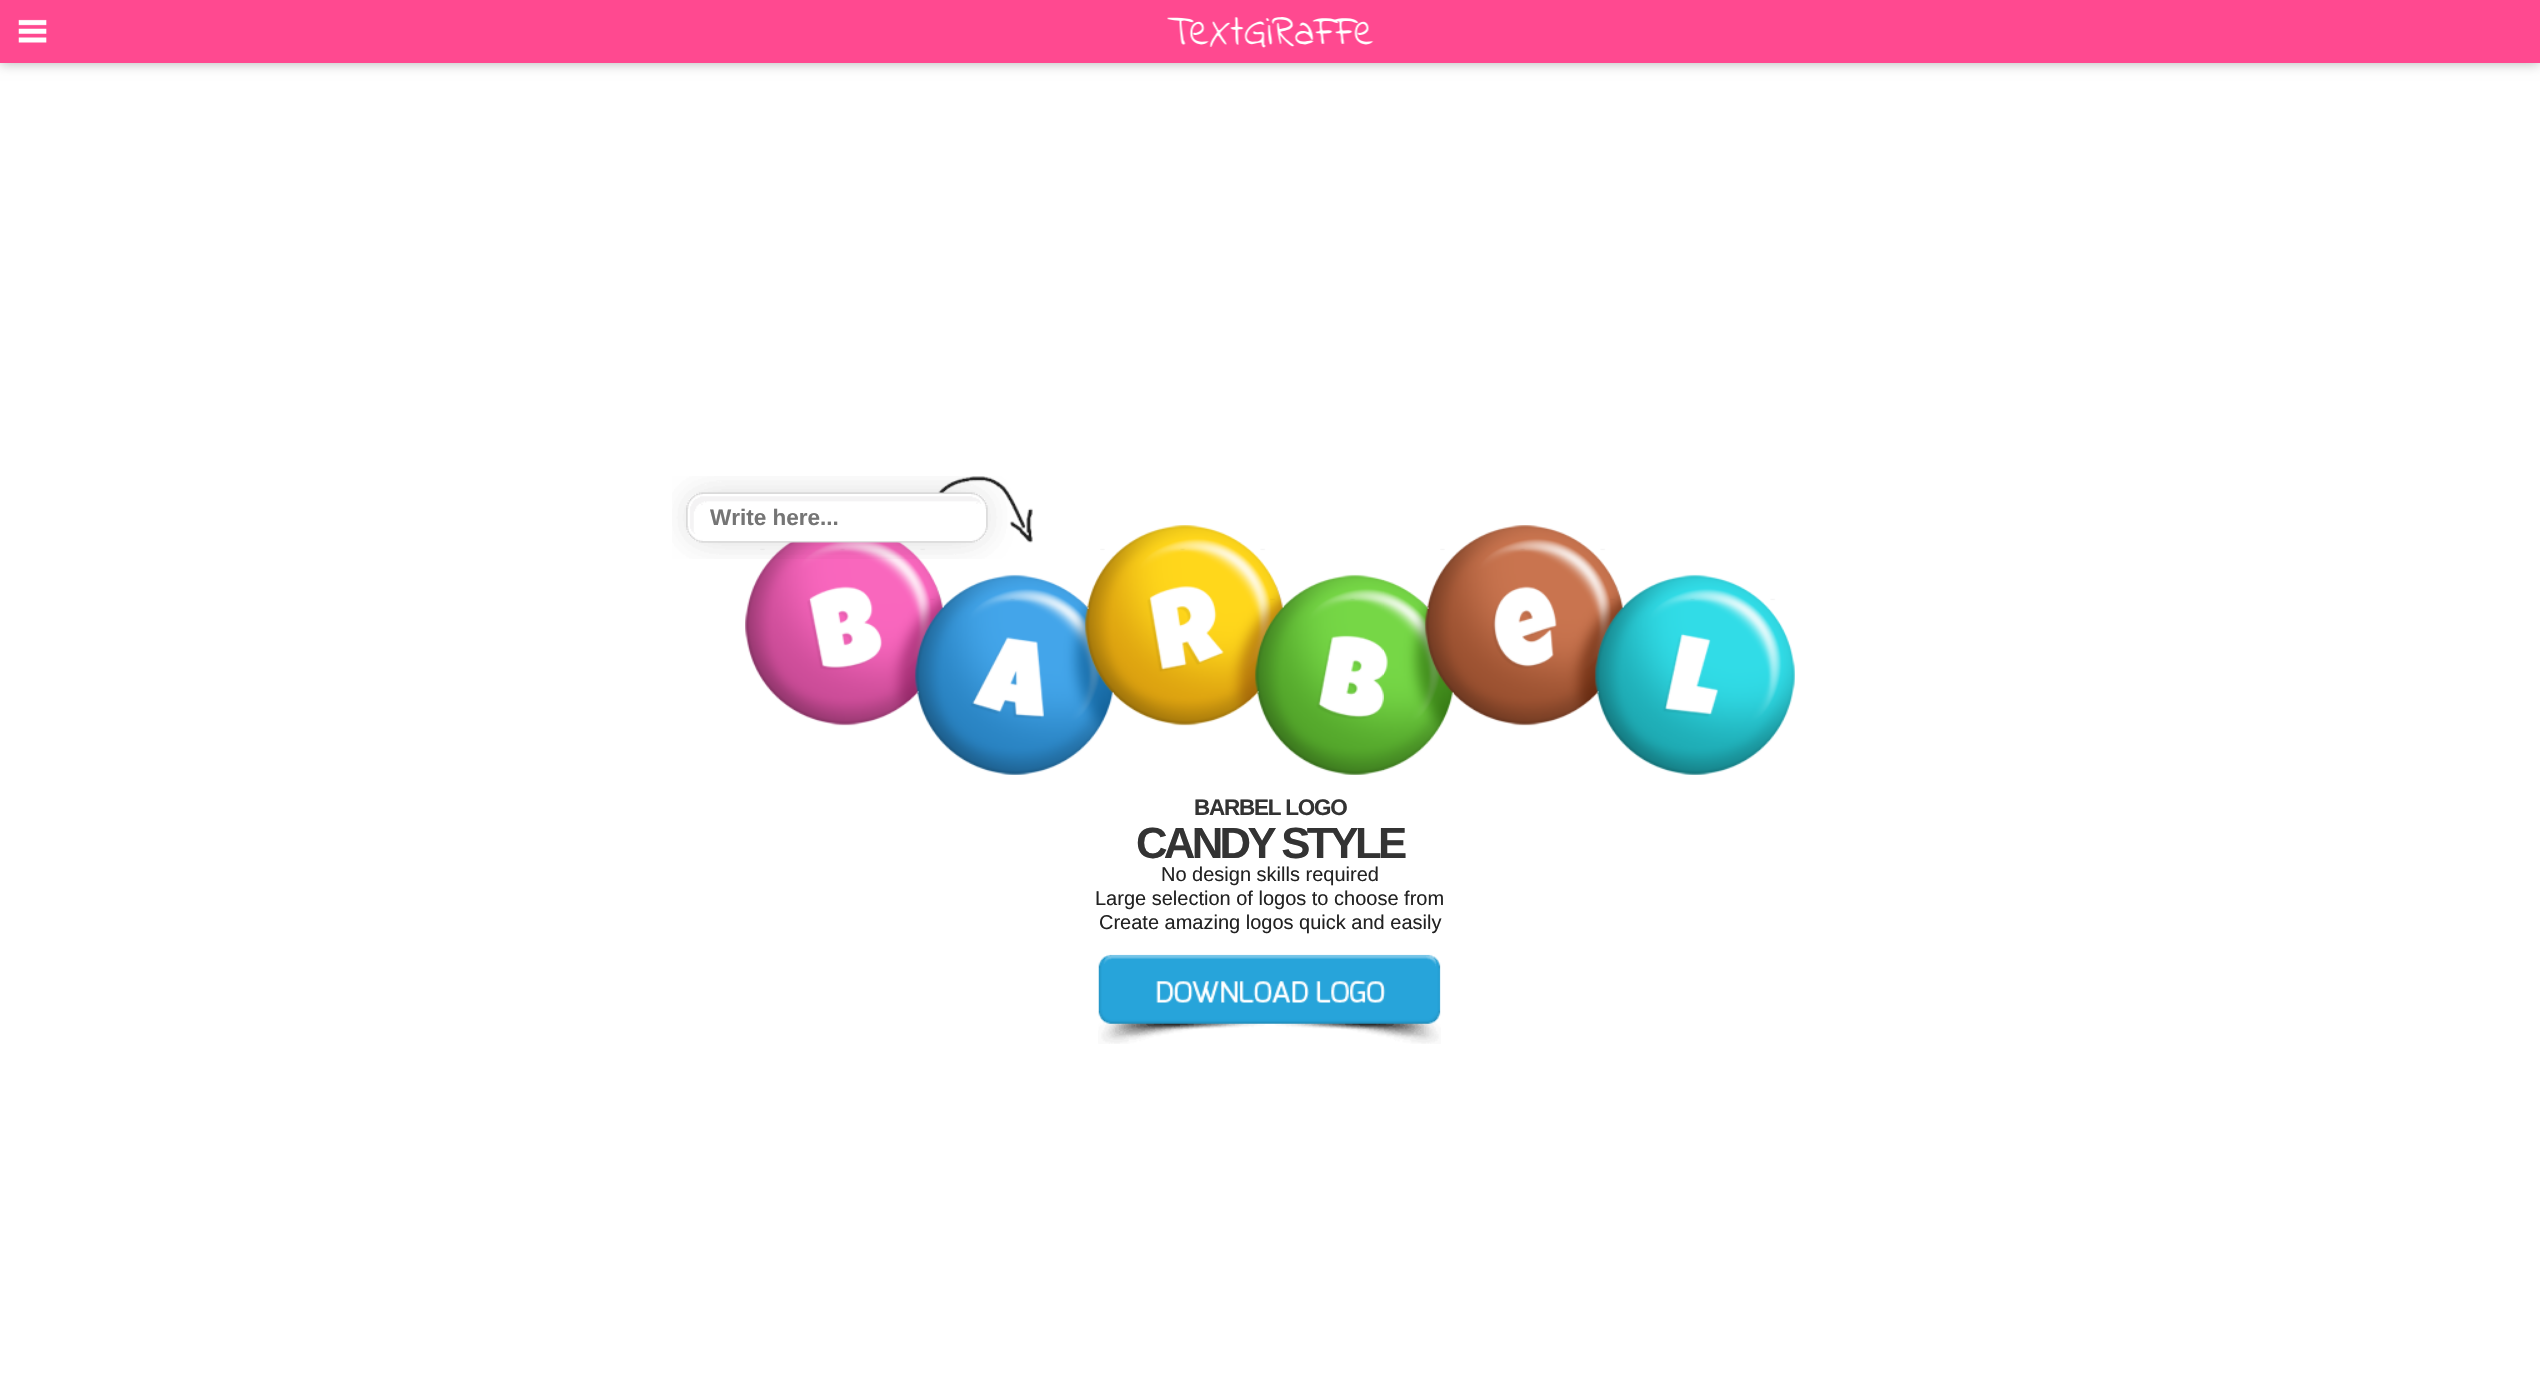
#include "include/core/SkBlurTypes.h"
#include "include/core/SkCanvas.h"
#include "include/core/SkData.h"
#include "include/core/SkFont.h"
#include "include/core/SkFontMgr.h"
#include "include/core/SkImage.h"
#include "include/core/SkMaskFilter.h"
#include "include/core/SkPaint.h"
#include "include/core/SkPathBuilder.h"
#include "include/core/SkTextBlob.h"
#include "include/effects/SkDashPathEffect.h"
#include "include/effects/SkGradientShader.h"
#include "include/utils/SkParsePath.h"

extern sk_sp<SkFontMgr> fontMgr;

void draw(SkCanvas* canvas) {
    SkPaint p;
    p.setAntiAlias(true);
    auto font = [&](const char* family, int weight, float size, bool italic = false) {
        SkFontStyle style(weight, SkFontStyle::kNormal_Width,
            italic ? SkFontStyle::kItalic_Slant : SkFontStyle::kUpright_Slant);
        SkFont result(fontMgr->matchFamilyStyle(family, style), size);
        result.setSubpixel(true);
        return result;
    };
    auto drawTracked = [&](const char* s, float x, float y, const SkFont& font, const SkPaint& ink, float letter, float word) {
        std::vector<SkGlyphID> glyphs(font.countText(s, strlen(s), SkTextEncoding::kUTF8));
        std::vector<float> xs(glyphs.size());
        font.textToGlyphs(s, strlen(s), SkTextEncoding::kUTF8, glyphs);
        font.getXPos(glyphs, xs, x);
        float extra = 0;
        for (size_t i = 0; i < glyphs.size(); i++) {
            xs[i] += extra;
            extra += letter + word * (glyphs[i] == font.unicharToGlyph(' '));
        }
        canvas->drawTextBlob(SkTextBlob::MakeFromPosHGlyphs(glyphs, xs, y, font), 0, 0, ink);
    };
    auto drawPhoto = [&](const char* path, float l, float t, float r, float b) {
        auto image = SkImages::DeferredFromEncodedData(SkData::MakeFromFileName(path));
        canvas->drawImageRect(image, SkRect::MakeLTRB(l, t, r, b), SkSamplingOptions());
    };
    canvas->clear(0xFFFFFFFF);
    p.setColor(0x4D000000);
    p.setMaskFilter(SkMaskFilter::MakeBlur(kNormal_SkBlurStyle, 6));
    canvas->drawRect(SkRect::MakeLTRB(0, 0, 2540, 63), p);
    p.setMaskFilter(nullptr);
    p.setColor(0xFFFF4990);
    canvas->drawRect(SkRect::MakeLTRB(0, 0, 2540, 63), p);
    drawPhoto("media/1.png", 18, 19, 47, 43);
    drawPhoto("media/2.png", 1167, 17, 1374, 48);
    drawPhoto("media/4.png", 745, 525, 1795, 775);
    drawPhoto("media/3.png", 672, 476, 1033, 559);
    auto font1 = font("Liberation Sans", 700, 22.5f);
    p.setColor(0xFF757575);
    canvas->drawString("Write here...", 710, 525, font1, p);
    p.setColor(0xFF333333);
    drawTracked("BARBEL LOGO", 1194, 815, font1, p, -1.25f, 0);
    auto font2 = font("Liberation Sans", 700, 43.75f);
    drawTracked("CANDY STYLE", 1136, 858, font2, p, -3.75f, 0);
    auto font3 = font("Liberation Sans", 400, 20);
    p.setColor(0xFF222222);
    {
        const struct { const char* s; float x, y; } items[] = {
            {"No design skills required", 1161, 881},
            {"Large selection of logos to choose from", 1095, 905},
            {"Create amazing logos quick and easily", 1099, 929},
        };
        for (auto [s, x, y] : items) {
            canvas->drawString(s, x, y, font3, p);
        }
    }
    drawPhoto("media/5.png", 1098, 954, 1441, 1044);
}
